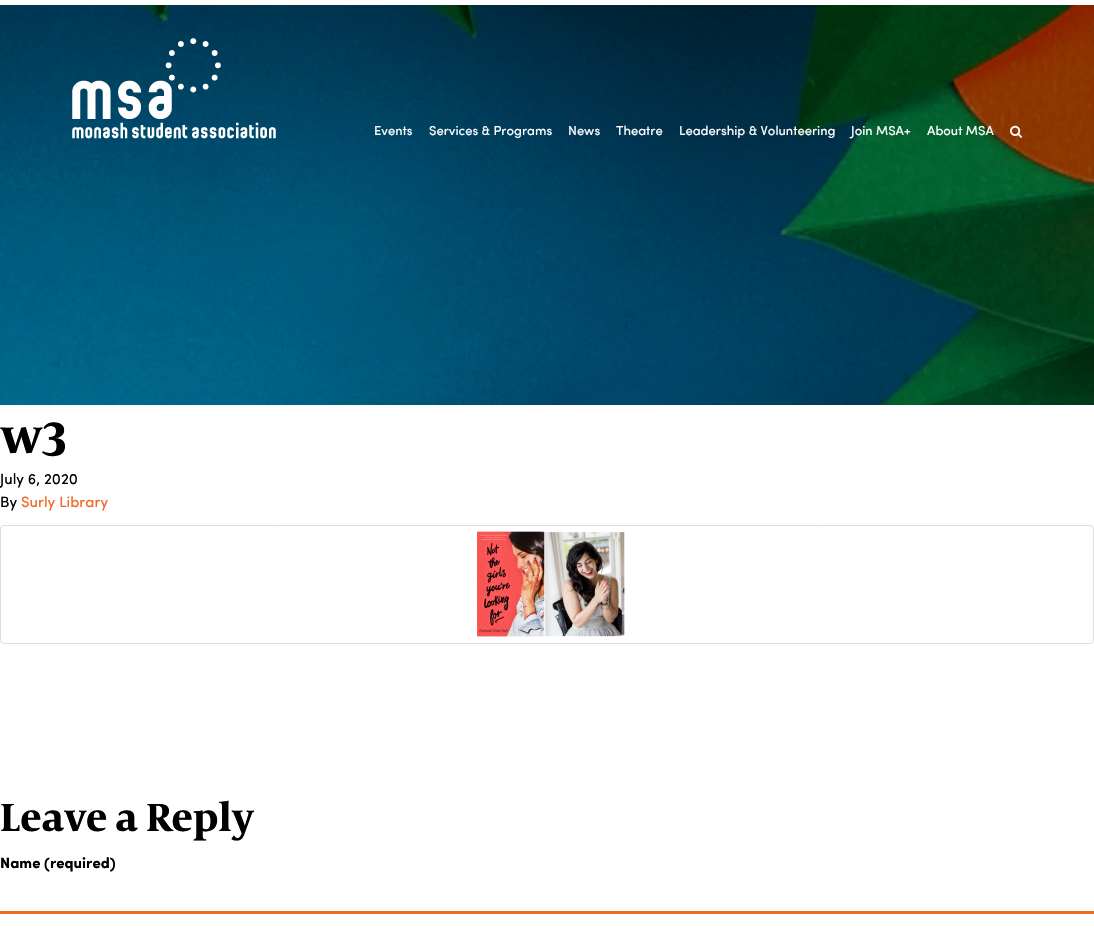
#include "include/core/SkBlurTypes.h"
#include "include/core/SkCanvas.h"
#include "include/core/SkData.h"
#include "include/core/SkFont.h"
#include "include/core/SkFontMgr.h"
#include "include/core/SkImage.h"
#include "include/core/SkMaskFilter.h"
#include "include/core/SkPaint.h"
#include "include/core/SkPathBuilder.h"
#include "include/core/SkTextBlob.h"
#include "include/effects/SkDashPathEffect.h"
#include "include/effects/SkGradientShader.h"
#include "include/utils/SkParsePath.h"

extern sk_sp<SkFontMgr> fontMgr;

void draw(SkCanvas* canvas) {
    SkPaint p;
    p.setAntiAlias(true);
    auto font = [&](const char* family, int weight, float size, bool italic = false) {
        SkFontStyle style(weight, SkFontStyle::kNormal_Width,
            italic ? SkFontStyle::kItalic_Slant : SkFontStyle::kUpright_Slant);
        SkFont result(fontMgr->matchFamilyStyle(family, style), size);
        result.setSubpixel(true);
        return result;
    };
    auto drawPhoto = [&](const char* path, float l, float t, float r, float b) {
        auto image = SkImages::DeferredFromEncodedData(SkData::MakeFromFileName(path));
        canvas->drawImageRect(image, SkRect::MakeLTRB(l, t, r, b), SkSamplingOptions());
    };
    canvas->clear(0xFFFFFFFF);
    drawPhoto("media/1.png", 0, 5, 1094, 405);
    drawPhoto("media/2.png", 72, 38, 276, 139);
    auto font1 = font("Sofia", 400, 13);
    p.setColor(0xFFFFFFFF);
    {
        const struct { const char* s; float x, y; } items[] = {
            {"Events", 374, 135},
            {"Services & Programs", 429, 135},
            {"News", 568, 135},
            {"Theatre", 616, 135},
            {"Leadership & Volunteering", 679, 135},
            {"Join MSA+", 851, 135},
            {"About MSA", 927, 135},
        };
        for (auto [s, x, y] : items) {
            canvas->drawString(s, x, y, font1, p);
        }
    }
    drawPhoto("media/3.png", 1010, 125, 1022, 138);
    auto font2 = font("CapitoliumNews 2", 700, 50);
    p.setColor(0xFF000000);
    canvas->drawString("w3", 0, 453, font2, p);
    auto font3 = font("Sofia", 400, 15);
    canvas->drawString("July 6, 2020", 0, 484, font3, p);
    canvas->drawString("By", 0, 507, font3, p);
    p.setColor(0xFFF16724);
    canvas->drawString("Surly Library", 21, 507, font3, p);
    p.setStyle(SkPaint::kStroke_Style);
    p.setStrokeWidth(1);
    p.setColor(0xFFDDDDDD);
    canvas->drawRoundRect(SkRect::MakeLTRB(0.5f, 525.5f, 1093.5f, 643.5f), 3.5f, 3.5f, p);
    drawPhoto("media/4.png", 477, 531, 625, 637);
    auto font4 = font("CapitoliumNews 2", 700, 40);
    p.setStyle(SkPaint::kFill_Style);
    p.setColor(0xFF000000);
    canvas->drawString("Leave a Reply", 0, 831, font4, p);
    auto font5 = font("Sofia", 700, 15);
    canvas->drawString("Name (required)", 0, 868, font5, p);
    p.setColor(0xFFF16724);
    canvas->drawRect(SkRect::MakeLTRB(0, 911, 1094, 914), p);
}
